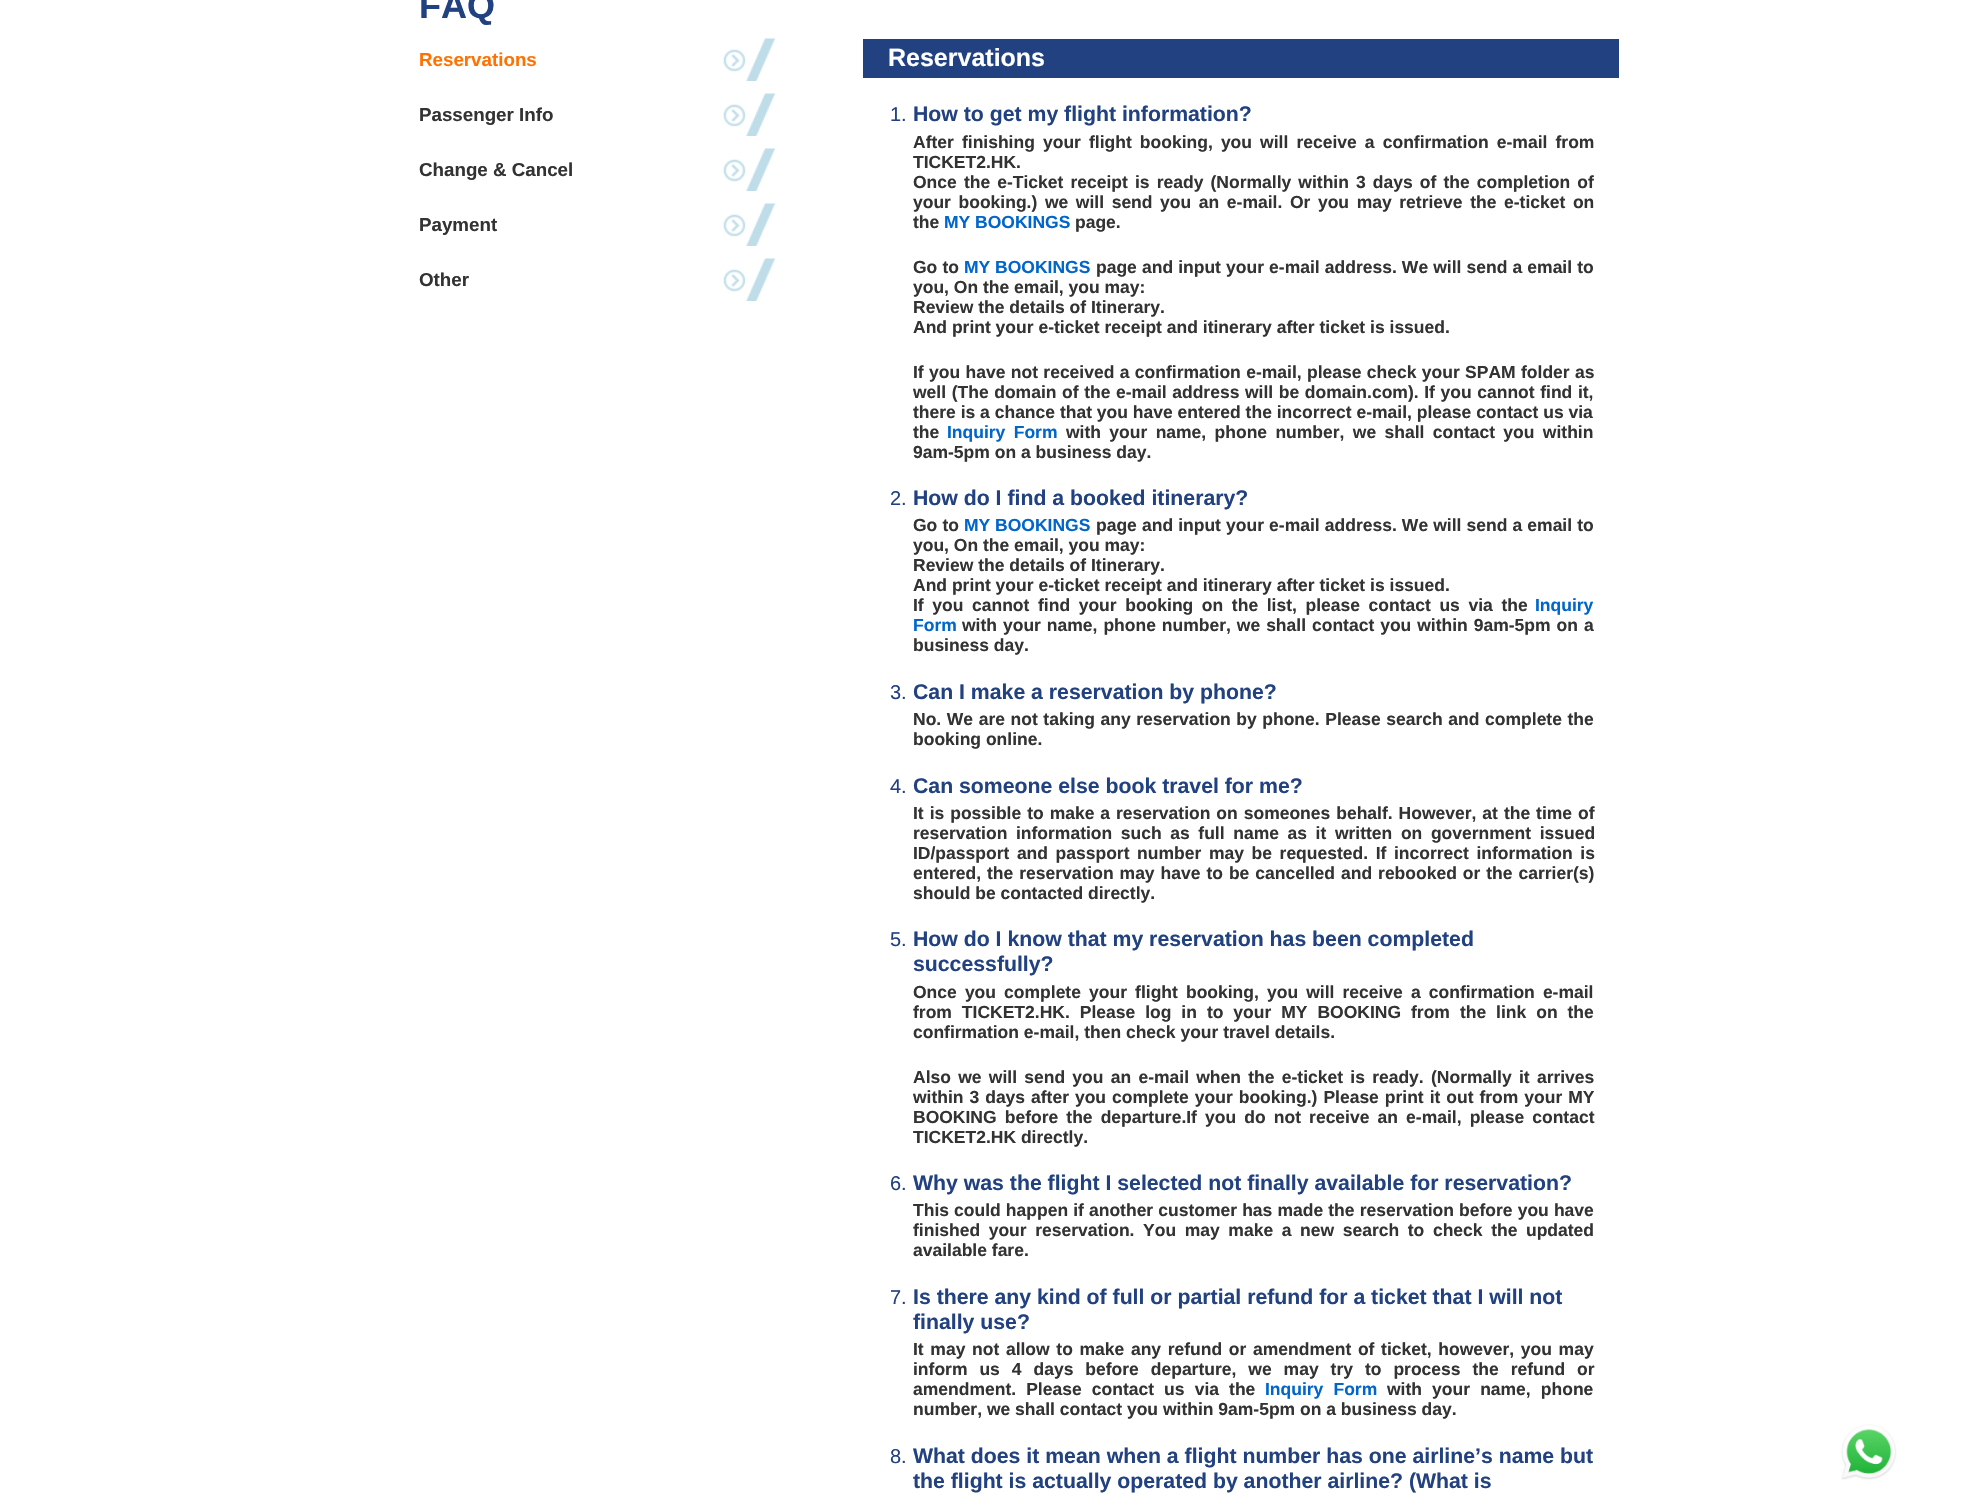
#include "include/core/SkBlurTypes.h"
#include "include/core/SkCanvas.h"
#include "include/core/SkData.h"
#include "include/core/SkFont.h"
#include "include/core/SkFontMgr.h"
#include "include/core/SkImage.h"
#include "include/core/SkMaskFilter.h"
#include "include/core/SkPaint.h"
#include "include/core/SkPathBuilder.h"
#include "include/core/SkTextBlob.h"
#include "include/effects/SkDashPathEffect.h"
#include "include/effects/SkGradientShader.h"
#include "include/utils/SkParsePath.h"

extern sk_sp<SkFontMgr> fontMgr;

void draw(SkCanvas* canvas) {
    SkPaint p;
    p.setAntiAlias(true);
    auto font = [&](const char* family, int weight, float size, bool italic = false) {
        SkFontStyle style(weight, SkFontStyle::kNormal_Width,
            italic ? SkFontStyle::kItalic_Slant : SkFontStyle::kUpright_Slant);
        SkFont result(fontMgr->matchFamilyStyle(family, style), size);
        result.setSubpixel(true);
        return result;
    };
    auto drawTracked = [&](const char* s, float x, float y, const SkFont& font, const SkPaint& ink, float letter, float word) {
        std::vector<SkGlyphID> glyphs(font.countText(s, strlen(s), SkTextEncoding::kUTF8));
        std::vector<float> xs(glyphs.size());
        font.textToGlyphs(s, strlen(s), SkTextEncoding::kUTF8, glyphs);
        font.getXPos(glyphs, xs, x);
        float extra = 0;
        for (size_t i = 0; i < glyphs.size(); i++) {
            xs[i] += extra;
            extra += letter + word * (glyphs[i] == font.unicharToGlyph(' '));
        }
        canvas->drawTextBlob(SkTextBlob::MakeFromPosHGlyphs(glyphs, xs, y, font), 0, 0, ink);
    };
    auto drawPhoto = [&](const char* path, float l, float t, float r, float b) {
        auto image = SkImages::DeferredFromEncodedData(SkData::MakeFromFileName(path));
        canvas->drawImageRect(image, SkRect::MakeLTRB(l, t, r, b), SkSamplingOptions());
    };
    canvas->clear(0xFFFFFFFF);
    auto font1 = font("Liberation Sans", 700, 36);
    p.setColor(0xFF214180);
    canvas->drawString("FAQ", 419, 18, font1, p);
    drawPhoto("media/1.png", 723, 38, 775, 81);
    auto font2 = font("Liberation Sans", 700, 18.75f);
    p.setColor(0xFFFF7201);
    canvas->drawString("Reservations", 419, 66, font2, p);
    drawPhoto("media/1.png", 723, 93, 775, 136);
    p.setColor(0xFF333333);
    canvas->drawString("Passenger Info", 419, 121, font2, p);
    drawPhoto("media/1.png", 723, 148, 775, 191);
    canvas->drawString("Change & Cancel", 419, 176, font2, p);
    drawPhoto("media/1.png", 723, 203, 775, 246);
    canvas->drawString("Payment", 419, 231, font2, p);
    drawPhoto("media/1.png", 723, 258, 775, 301);
    canvas->drawString("Other", 419, 286, font2, p);
    p.setColor(0xFF214180);
    canvas->drawRect(SkRect::MakeLTRB(863, 39, 1619, 78), p);
    auto font3 = font("Liberation Sans", 700, 25);
    p.setColor(0xFFFFFFFF);
    canvas->drawString("Reservations", 888, 66, font3, p);
    auto font4 = font("Liberation Sans", 400, 20);
    p.setColor(0xFF214180);
    canvas->drawString("1.", 890, 121, font4, p);
    auto font5 = font("Liberation Sans", 700, 21.25f);
    canvas->drawString("How to get my flight information?", 913, 121, font5, p);
    auto font6 = font("Liberation Sans", 700, 17.5f);
    p.setColor(0xFF333333);
    drawTracked("After finishing your flight booking, you will receive a confirmation e-mail from", 913, 148, font6, p, 0, 3.25f);
    canvas->drawString("TICKET2.HK.", 913, 168, font6, p);
    drawTracked("Once the e-Ticket receipt is ready (Normally within 3 days of the completion of", 913, 188, font6, p, 0, 2.25f);
    drawTracked("your booking.) we will send you an e-mail. Or you may retrieve the e-ticket on", 913, 208, font6, p, 0, 2.75f);
    canvas->drawString("the", 913, 228, font6, p);
    p.setColor(0xFF0066CC);
    canvas->drawString("MY BOOKINGS", 944, 228, font6, p);
    p.setColor(0xFF333333);
    canvas->drawString("page.", 1075, 228, font6, p);
    drawTracked("Go to", 913, 273, font6, p, 0, 0.25f);
    p.setColor(0xFF0066CC);
    canvas->drawString("MY BOOKINGS", 964, 273, font6, p);
    p.setColor(0xFF333333);
    drawTracked("page and input your e-mail address. We will send a email to", 1096, 273, font6, p, 0, 0.25f);
    {
        const struct { const char* s; float x, y; } items[] = {
            {"you, On the email, you may:", 913, 293},
            {"Review the details of Itinerary.", 913, 313},
            {"And print your e-ticket receipt and itinerary after ticket is issued.", 913, 333},
        };
        for (auto [s, x, y] : items) {
            canvas->drawString(s, x, y, font6, p);
        }
    }
    drawTracked("If you have not received a confirmation e-mail, please check your SPAM folder as", 913, 378, font6, p, 0, 0.5f);
    drawTracked("well (The domain of the e-mail address will be domain.com). If you cannot find it,", 913, 398, font6, p, 0, 0.75f);
    canvas->drawString("there is a chance that you have entered the incorrect e-mail, please contact us via", 913, 418, font6, p);
    canvas->drawString("the", 913, 438, font6, p);
    p.setColor(0xFF0066CC);
    drawTracked("Inquiry Form", 947, 438, font6, p, 0, 3.5f);
    p.setColor(0xFF333333);
    drawTracked("with your name, phone number, we shall contact you within", 1066, 438, font6, p, 0, 3.5f);
    canvas->drawString("9am-5pm on a business day.", 913, 458, font6, p);
    p.setColor(0xFF214180);
    canvas->drawString("2.", 890, 505, font4, p);
    canvas->drawString("How do I find a booked itinerary?", 913, 505, font5, p);
    p.setColor(0xFF333333);
    drawTracked("Go to", 913, 531, font6, p, 0, 0.25f);
    p.setColor(0xFF0066CC);
    canvas->drawString("MY BOOKINGS", 964, 531, font6, p);
    p.setColor(0xFF333333);
    drawTracked("page and input your e-mail address. We will send a email to", 1096, 531, font6, p, 0, 0.25f);
    {
        const struct { const char* s; float x, y; } items[] = {
            {"you, On the email, you may:", 913, 551},
            {"Review the details of Itinerary.", 913, 571},
            {"And print your e-ticket receipt and itinerary after ticket is issued.", 913, 591},
        };
        for (auto [s, x, y] : items) {
            canvas->drawString(s, x, y, font6, p);
        }
    }
    drawTracked("If you cannot find your booking on the list, please contact us via the", 913, 611, font6, p, 0, 3.75f);
    p.setColor(0xFF0066CC);
    canvas->drawString("Inquiry", 1535, 611, font6, p);
    canvas->drawString("Form", 913, 631, font6, p);
    p.setColor(0xFF333333);
    drawTracked("with your name, phone number, we shall contact you within 9am-5pm on a", 962, 631, font6, p, 0, 1.1f);
    canvas->drawString("business day.", 913, 651, font6, p);
    p.setColor(0xFF214180);
    canvas->drawString("3.", 890, 699, font4, p);
    canvas->drawString("Can I make a reservation by phone?", 913, 699, font5, p);
    p.setColor(0xFF333333);
    drawTracked("No. We are not taking any reservation by phone. Please search and complete the", 913, 725, font6, p, 0, 0.75f);
    canvas->drawString("booking online.", 913, 745, font6, p);
    p.setColor(0xFF214180);
    canvas->drawString("4.", 890, 793, font4, p);
    canvas->drawString("Can someone else book travel for me?", 913, 793, font5, p);
    p.setColor(0xFF333333);
    drawTracked("It is possible to make a reservation on someones behalf. However, at the time of", 913, 819, font6, p, 0, 1.1f);
    drawTracked("reservation information such as full name as it written on government issued", 913, 839, font6, p, 0, 3.75f);
    drawTracked("ID/passport and passport number may be requested. If incorrect information is", 913, 859, font6, p, 0, 2.75f);
    drawTracked("entered, the reservation may have to be cancelled and rebooked or the carrier(s)", 913, 879, font6, p, 0, 1.1f);
    canvas->drawString("should be contacted directly.", 913, 899, font6, p);
    p.setColor(0xFF214180);
    canvas->drawString("5.", 890, 946, font4, p);
    canvas->drawString("How do I know that my reservation has been completed", 913, 946, font5, p);
    canvas->drawString("successfully?", 913, 971, font5, p);
    p.setColor(0xFF333333);
    drawTracked("Once you complete your flight booking, you will receive a confirmation e-mail", 913, 998, font6, p, 0, 3.25f);
    drawTracked("from TICKET2.HK. Please log in to your MY BOOKING from the link on the", 913, 1018, font6, p, 0, 5.1f);
    canvas->drawString("confirmation e-mail, then check your travel details.", 913, 1038, font6, p);
    drawTracked("Also we will send you an e-mail when the e-ticket is ready. (Normally it arrives", 913, 1083, font6, p, 0, 2.4f);
    drawTracked("within 3 days after you complete your booking.) Please print it out from your MY", 913, 1103, font6, p, 0, 1.1f);
    drawTracked("BOOKING before the departure.If you do not receive an e-mail, please contact", 913, 1123, font6, p, 0, 3.25f);
    canvas->drawString("TICKET2.HK directly.", 913, 1143, font6, p);
    p.setColor(0xFF214180);
    canvas->drawString("6.", 890, 1190, font4, p);
    canvas->drawString("Why was the flight I selected not finally available for reservation?", 913, 1190, font5, p);
    p.setColor(0xFF333333);
    drawTracked("This could happen if another customer has made the reservation before you have", 913, 1216, font6, p, 0, 0.25f);
    drawTracked("finished your reservation. You may make a new search to check the updated", 913, 1236, font6, p, 0, 3.75f);
    canvas->drawString("available fare.", 913, 1256, font6, p);
    p.setColor(0xFF214180);
    canvas->drawString("7.", 890, 1304, font4, p);
    canvas->drawString("Is there any kind of full or partial refund for a ticket that I will not", 913, 1304, font5, p);
    canvas->drawString("finally use?", 913, 1329, font5, p);
    p.setColor(0xFF333333);
    drawTracked("It may not allow to make any refund or amendment of ticket, however, you may", 913, 1355, font6, p, 0, 1.8f);
    drawTracked("inform us 4 days before departure, we may try to process the refund or", 913, 1375, font6, p, 0, 7.1f);
    drawTracked("amendment. Please contact us via the", 913, 1395, font6, p, 0, 5.25f);
    p.setColor(0xFF0066CC);
    drawTracked("Inquiry Form", 1265, 1395, font6, p, 0, 5.25f);
    p.setColor(0xFF333333);
    drawTracked("with your name, phone", 1387, 1395, font6, p, 0, 5.25f);
    canvas->drawString("number, we shall contact you within 9am-5pm on a business day.", 913, 1415, font6, p);
    p.setColor(0xFF214180);
    canvas->drawString("8.", 890, 1463, font4, p);
    canvas->drawString("What does it mean when a flight number has one airline’s name but", 913, 1463, font5, p);
    canvas->drawString("the flight is actually operated by another airline? (What is", 913, 1488, font5, p);
    drawPhoto("media/2.png", 1841, 1424, 1897, 1480);
}
